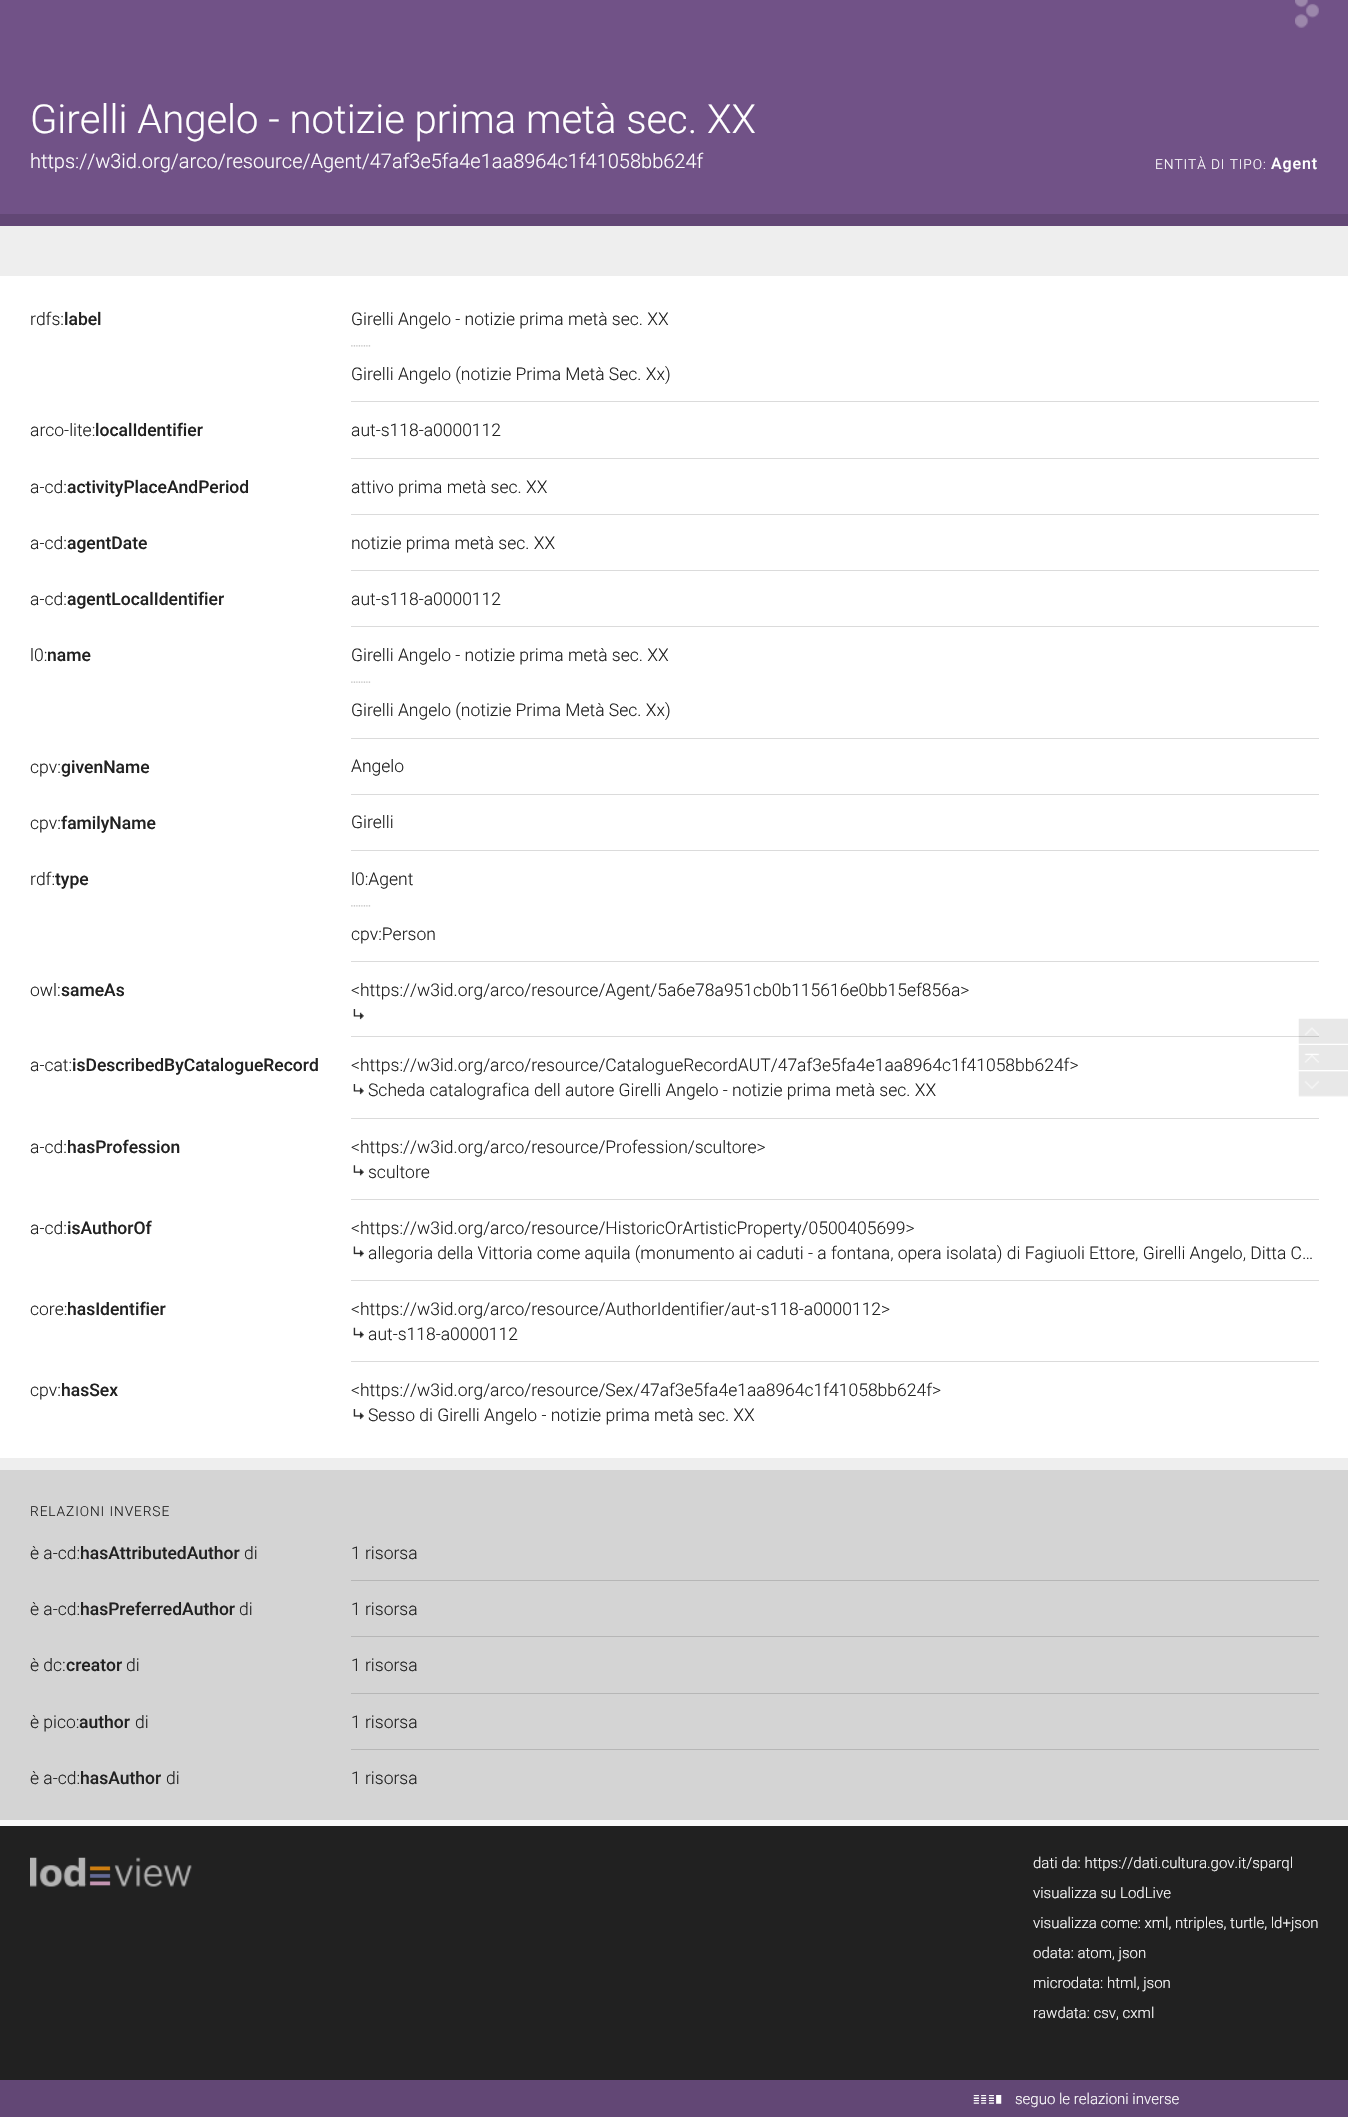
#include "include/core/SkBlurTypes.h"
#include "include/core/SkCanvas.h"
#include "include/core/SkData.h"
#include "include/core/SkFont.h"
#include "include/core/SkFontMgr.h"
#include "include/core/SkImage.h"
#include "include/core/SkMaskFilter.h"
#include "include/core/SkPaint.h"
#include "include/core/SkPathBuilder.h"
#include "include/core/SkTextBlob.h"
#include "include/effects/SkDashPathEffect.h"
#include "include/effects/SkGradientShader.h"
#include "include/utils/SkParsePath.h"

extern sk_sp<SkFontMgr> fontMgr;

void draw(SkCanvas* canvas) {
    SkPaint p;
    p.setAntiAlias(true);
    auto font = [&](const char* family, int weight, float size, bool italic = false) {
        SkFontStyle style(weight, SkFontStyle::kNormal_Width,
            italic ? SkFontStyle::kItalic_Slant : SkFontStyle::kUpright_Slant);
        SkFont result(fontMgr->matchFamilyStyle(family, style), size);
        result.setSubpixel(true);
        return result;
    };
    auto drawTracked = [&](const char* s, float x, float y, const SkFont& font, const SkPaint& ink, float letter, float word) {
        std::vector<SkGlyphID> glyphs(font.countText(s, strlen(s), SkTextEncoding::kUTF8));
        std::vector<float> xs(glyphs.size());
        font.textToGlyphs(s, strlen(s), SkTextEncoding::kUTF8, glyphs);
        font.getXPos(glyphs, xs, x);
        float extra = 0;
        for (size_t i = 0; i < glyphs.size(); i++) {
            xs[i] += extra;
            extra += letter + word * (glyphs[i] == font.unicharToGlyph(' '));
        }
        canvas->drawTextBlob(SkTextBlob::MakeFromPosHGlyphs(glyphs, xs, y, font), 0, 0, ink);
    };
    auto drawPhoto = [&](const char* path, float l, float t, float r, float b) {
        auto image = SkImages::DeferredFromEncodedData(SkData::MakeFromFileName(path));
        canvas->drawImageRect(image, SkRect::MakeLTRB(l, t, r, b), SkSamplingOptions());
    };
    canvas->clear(0xFF212121);
    p.setColor(0xFF715287);
    canvas->drawRect(SkRect::MakeLTRB(0, 0, 1348, 214), p);
    auto font1 = font("Roboto", 300, 40);
    p.setColor(0xFFFFFFFF);
    canvas->drawString("Girelli Angelo - notizie prima metà sec. XX", 30, 133, font1, p);
    drawPhoto("media/1.png", 1295, 0, 1319, 28);
    auto font2 = font("Roboto", 300, 20);
    canvas->drawString("https://w3id.org/arco/resource/Agent/47af3e5fa4e1aa8964c1f41058bb624f", 30, 168, font2, p);
    auto font3 = font("Roboto", 300, 13.75f);
    drawTracked("ENTITÀ DI TIPO:", 1155, 169, font3, p, 0.9f, 0);
    auto font4 = font("Roboto", 500, 16);
    drawTracked("Agent", 1271, 169, font4, p, 0.9f, 0);
    {
        const struct { float l, t, r, b; SkColor color; } items[] = {
            {0, 214, 1348, 226, 0xFF624775},
            {0, 226, 1348, 276, 0xFFEEEEEE},
            {0, 276, 1348, 1458, 0xFFFFFFFF},
        };
        for (auto [l, t, r, b, color] : items) {
            p.setColor(color);
            canvas->drawRect(SkRect::MakeLTRB(l, t, r, b), p);
        }
    }
    auto font5 = font("Roboto", 300, 17.5f);
    p.setColor(0xFF212121);
    canvas->drawString("rdfs:", 30, 325, font5, p);
    auto font6 = font("Roboto", 500, 17.5f);
    canvas->drawString("label", 64, 325, font6, p);
    p.setColor(0xFFDBDBDB);
    canvas->drawRect(SkRect::MakeLTRB(351, 401, 1319, 402), p);
    drawPhoto("media/2.png", 351, 345, 371, 347);
    p.setColor(0xFF212121);
    {
        const struct { const char* s; float x, y; } items[] = {
            {"Girelli Angelo - notizie prima metà sec. XX", 351, 325},
            {"Girelli Angelo (notizie Prima Metà Sec. Xx)", 351, 380},
            {"arco-lite:", 30, 436},
        };
        for (auto [s, x, y] : items) {
            canvas->drawString(s, x, y, font5, p);
        }
    }
    canvas->drawString("localIdentifier", 95, 436, font6, p);
    p.setColor(0xFFDBDBDB);
    canvas->drawRect(SkRect::MakeLTRB(351, 458, 1319, 459), p);
    p.setColor(0xFF212121);
    canvas->drawString("aut-s118-a0000112", 351, 436, font5, p);
    canvas->drawString("a-cd:", 30, 493, font5, p);
    canvas->drawString("activityPlaceAndPeriod", 67, 493, font6, p);
    p.setColor(0xFFDBDBDB);
    canvas->drawRect(SkRect::MakeLTRB(351, 514, 1319, 515), p);
    p.setColor(0xFF212121);
    canvas->drawString("attivo prima metà sec. XX", 351, 493, font5, p);
    canvas->drawString("a-cd:", 30, 549, font5, p);
    canvas->drawString("agentDate", 67, 549, font6, p);
    p.setColor(0xFFDBDBDB);
    canvas->drawRect(SkRect::MakeLTRB(351, 570, 1319, 571), p);
    p.setColor(0xFF212121);
    canvas->drawString("notizie prima metà sec. XX", 351, 549, font5, p);
    canvas->drawString("a-cd:", 30, 605, font5, p);
    canvas->drawString("agentLocalIdentifier", 67, 605, font6, p);
    p.setColor(0xFFDBDBDB);
    canvas->drawRect(SkRect::MakeLTRB(351, 626, 1319, 627), p);
    p.setColor(0xFF212121);
    canvas->drawString("aut-s118-a0000112", 351, 605, font5, p);
    canvas->drawString("l0:", 30, 661, font5, p);
    canvas->drawString("name", 47, 661, font6, p);
    p.setColor(0xFFDBDBDB);
    canvas->drawRect(SkRect::MakeLTRB(351, 738, 1319, 739), p);
    drawPhoto("media/3.png", 351, 681, 371, 683);
    p.setColor(0xFF212121);
    {
        const struct { const char* s; float x, y; } items[] = {
            {"Girelli Angelo - notizie prima metà sec. XX", 351, 661},
            {"Girelli Angelo (notizie Prima Metà Sec. Xx)", 351, 716},
            {"cpv:", 30, 773},
        };
        for (auto [s, x, y] : items) {
            canvas->drawString(s, x, y, font5, p);
        }
    }
    canvas->drawString("givenName", 61, 773, font6, p);
    p.setColor(0xFFDBDBDB);
    canvas->drawRect(SkRect::MakeLTRB(351, 794, 1319, 795), p);
    p.setColor(0xFF212121);
    canvas->drawString("Angelo", 351, 772, font5, p);
    canvas->drawString("cpv:", 30, 829, font5, p);
    canvas->drawString("familyName", 61, 829, font6, p);
    p.setColor(0xFFDBDBDB);
    canvas->drawRect(SkRect::MakeLTRB(351, 850, 1319, 851), p);
    p.setColor(0xFF212121);
    canvas->drawString("Girelli", 351, 828, font5, p);
    canvas->drawString("rdf:", 30, 885, font5, p);
    canvas->drawString("type", 55, 885, font6, p);
    p.setColor(0xFFDBDBDB);
    canvas->drawRect(SkRect::MakeLTRB(351, 961, 1319, 962), p);
    drawPhoto("media/2.png", 351, 905, 371, 907);
    p.setColor(0xFF212121);
    {
        const struct { const char* s; float x, y; } items[] = {
            {"l0:Agent", 351, 885},
            {"cpv:Person", 351, 940},
            {"owl:", 30, 996},
        };
        for (auto [s, x, y] : items) {
            canvas->drawString(s, x, y, font5, p);
        }
    }
    canvas->drawString("sameAs", 61, 996, font6, p);
    p.setColor(0xFFDBDBDB);
    canvas->drawRect(SkRect::MakeLTRB(351, 1036, 1319, 1037), p);
    p.setColor(0xFF212121);
    canvas->drawString("<https://w3id.org/arco/resource/Agent/5a6e78a951cb0b115616e0bb15ef856a>", 351, 996, font5, p);
    drawPhoto("media/4.png", 353, 1009, 364, 1020);
    canvas->drawString("a-cat:", 30, 1071, font5, p);
    canvas->drawString("isDescribedByCatalogueRecord", 72, 1071, font6, p);
    p.setColor(0xFFDBDBDB);
    canvas->drawRect(SkRect::MakeLTRB(351, 1118, 1319, 1119), p);
    p.setColor(0xFF212121);
    canvas->drawString("<https://w3id.org/arco/resource/CatalogueRecordAUT/47af3e5fa4e1aa8964c1f41058bb624f>", 351, 1071, font5, p);
    drawPhoto("media/4.png", 353, 1084, 364, 1095);
    canvas->drawString("Scheda catalografica dell autore Girelli Angelo - notizie prima metà sec. XX", 368, 1096, font5, p);
    canvas->drawString("a-cd:", 30, 1153, font5, p);
    canvas->drawString("hasProfession", 67, 1153, font6, p);
    p.setColor(0xFFDBDBDB);
    canvas->drawRect(SkRect::MakeLTRB(351, 1199, 1319, 1200), p);
    p.setColor(0xFF212121);
    canvas->drawString("<https://w3id.org/arco/resource/Profession/scultore>", 351, 1153, font5, p);
    drawPhoto("media/5.png", 353, 1165, 364, 1176);
    canvas->drawString("scultore", 368, 1178, font5, p);
    canvas->drawString("a-cd:", 30, 1234, font5, p);
    canvas->drawString("isAuthorOf", 67, 1234, font6, p);
    p.setColor(0xFFDBDBDB);
    canvas->drawRect(SkRect::MakeLTRB(351, 1280, 1319, 1281), p);
    p.setColor(0xFF212121);
    canvas->drawString("<https://w3id.org/arco/resource/HistoricOrArtisticProperty/0500405699>", 351, 1234, font5, p);
    drawPhoto("media/6.png", 353, 1246, 364, 1257);
    canvas->drawString("allegoria della Vittoria come aquila (monumento ai caduti - a fontana, opera isolata) di Fagiuoli Ettore, Girelli Angelo, Ditta C…", 368, 1259, font5, p);
    canvas->drawString("core:", 30, 1315, font5, p);
    canvas->drawString("hasIdentifier", 67, 1315, font6, p);
    p.setColor(0xFFDBDBDB);
    canvas->drawRect(SkRect::MakeLTRB(351, 1361, 1319, 1362), p);
    p.setColor(0xFF212121);
    canvas->drawString("<https://w3id.org/arco/resource/AuthorIdentifier/aut-s118-a0000112>", 351, 1315, font5, p);
    drawPhoto("media/7.png", 353, 1327, 364, 1338);
    canvas->drawString("aut-s118-a0000112", 368, 1340, font5, p);
    canvas->drawString("cpv:", 30, 1396, font5, p);
    canvas->drawString("hasSex", 61, 1396, font6, p);
    canvas->drawString("<https://w3id.org/arco/resource/Sex/47af3e5fa4e1aa8964c1f41058bb624f>", 351, 1396, font5, p);
    drawPhoto("media/8.png", 353, 1409, 364, 1420);
    canvas->drawString("Sesso di Girelli Angelo - notizie prima metà sec. XX", 368, 1421, font5, p);
    p.setColor(0xFFEEEEEE);
    canvas->drawRect(SkRect::MakeLTRB(0, 1458, 1348, 1470), p);
    p.setColor(0xFFD4D4D4);
    canvas->drawRect(SkRect::MakeLTRB(0, 1470, 1348, 1820), p);
    p.setColor(0xFF212121);
    drawTracked("RELAZIONI INVERSE", 30, 1516, font3, p, 0.9f, 0);
    canvas->drawString("è a-cd:", 30, 1559, font5, p);
    canvas->drawString("hasAttributedAuthor", 80, 1559, font6, p);
    canvas->drawString("di", 244, 1559, font5, p);
    p.setColor(0xFFB6B6B6);
    canvas->drawRect(SkRect::MakeLTRB(351, 1580, 1319, 1581), p);
    p.setColor(0xFF212121);
    canvas->drawString("1 risorsa", 351, 1559, font5, p);
    canvas->drawString("è a-cd:", 30, 1615, font5, p);
    canvas->drawString("hasPreferredAuthor", 80, 1615, font6, p);
    canvas->drawString("di", 239, 1615, font5, p);
    p.setColor(0xFFB6B6B6);
    canvas->drawRect(SkRect::MakeLTRB(351, 1636, 1319, 1637), p);
    p.setColor(0xFF212121);
    canvas->drawString("1 risorsa", 351, 1615, font5, p);
    canvas->drawString("è dc:", 30, 1671, font5, p);
    canvas->drawString("creator", 66, 1671, font6, p);
    canvas->drawString("di", 126, 1671, font5, p);
    p.setColor(0xFFB6B6B6);
    canvas->drawRect(SkRect::MakeLTRB(351, 1693, 1319, 1694), p);
    p.setColor(0xFF212121);
    canvas->drawString("1 risorsa", 351, 1671, font5, p);
    canvas->drawString("è pico:", 30, 1728, font5, p);
    canvas->drawString("author", 79, 1728, font6, p);
    canvas->drawString("di", 135, 1728, font5, p);
    p.setColor(0xFFB6B6B6);
    canvas->drawRect(SkRect::MakeLTRB(351, 1749, 1319, 1750), p);
    p.setColor(0xFF212121);
    canvas->drawString("1 risorsa", 351, 1728, font5, p);
    canvas->drawString("è a-cd:", 30, 1784, font5, p);
    canvas->drawString("hasAuthor", 80, 1784, font6, p);
    canvas->drawString("di", 166, 1784, font5, p);
    canvas->drawString("1 risorsa", 351, 1784, font5, p);
    p.setColor(0xFFFAFAFA);
    canvas->drawRect(SkRect::MakeLTRB(0, 1820, 1348, 1826), p);
    drawPhoto("media/9.png", 1298, 1018, 1348, 1044);
    drawPhoto("media/10.png", 1298, 1045, 1348, 1070);
    drawPhoto("media/11.png", 1298, 1071, 1348, 1097);
    drawPhoto("media/12.png", 30, 1857, 192, 1887);
    auto font7 = font("Roboto", 300, 15);
    p.setColor(0xFFFFFFFF);
    {
        const struct { const char* s; float x, y; } items[] = {
            {"dati da: https://dati.cultura.gov.it/sparql", 1033, 1868},
            {"visualizza su LodLive", 1033, 1898},
            {"visualizza come: xml, ntriples, turtle, ld+json", 1033, 1928},
            {"odata: atom, json", 1033, 1958},
            {"microdata: html, json", 1033, 1988},
            {"rawdata: csv, cxml", 1033, 2018},
        };
        for (auto [s, x, y] : items) {
            canvas->drawString(s, x, y, font7, p);
        }
    }
    p.setColor(0xFF624775);
    canvas->drawRect(SkRect::MakeLTRB(0, 2080, 1348, 2117), p);
    drawPhoto("media/13.png", 973, 2095, 1002, 2104);
    p.setColor(0xFFFFFFFF);
    canvas->drawString("seguo le relazioni inverse", 1015, 2104, font7, p);
}
